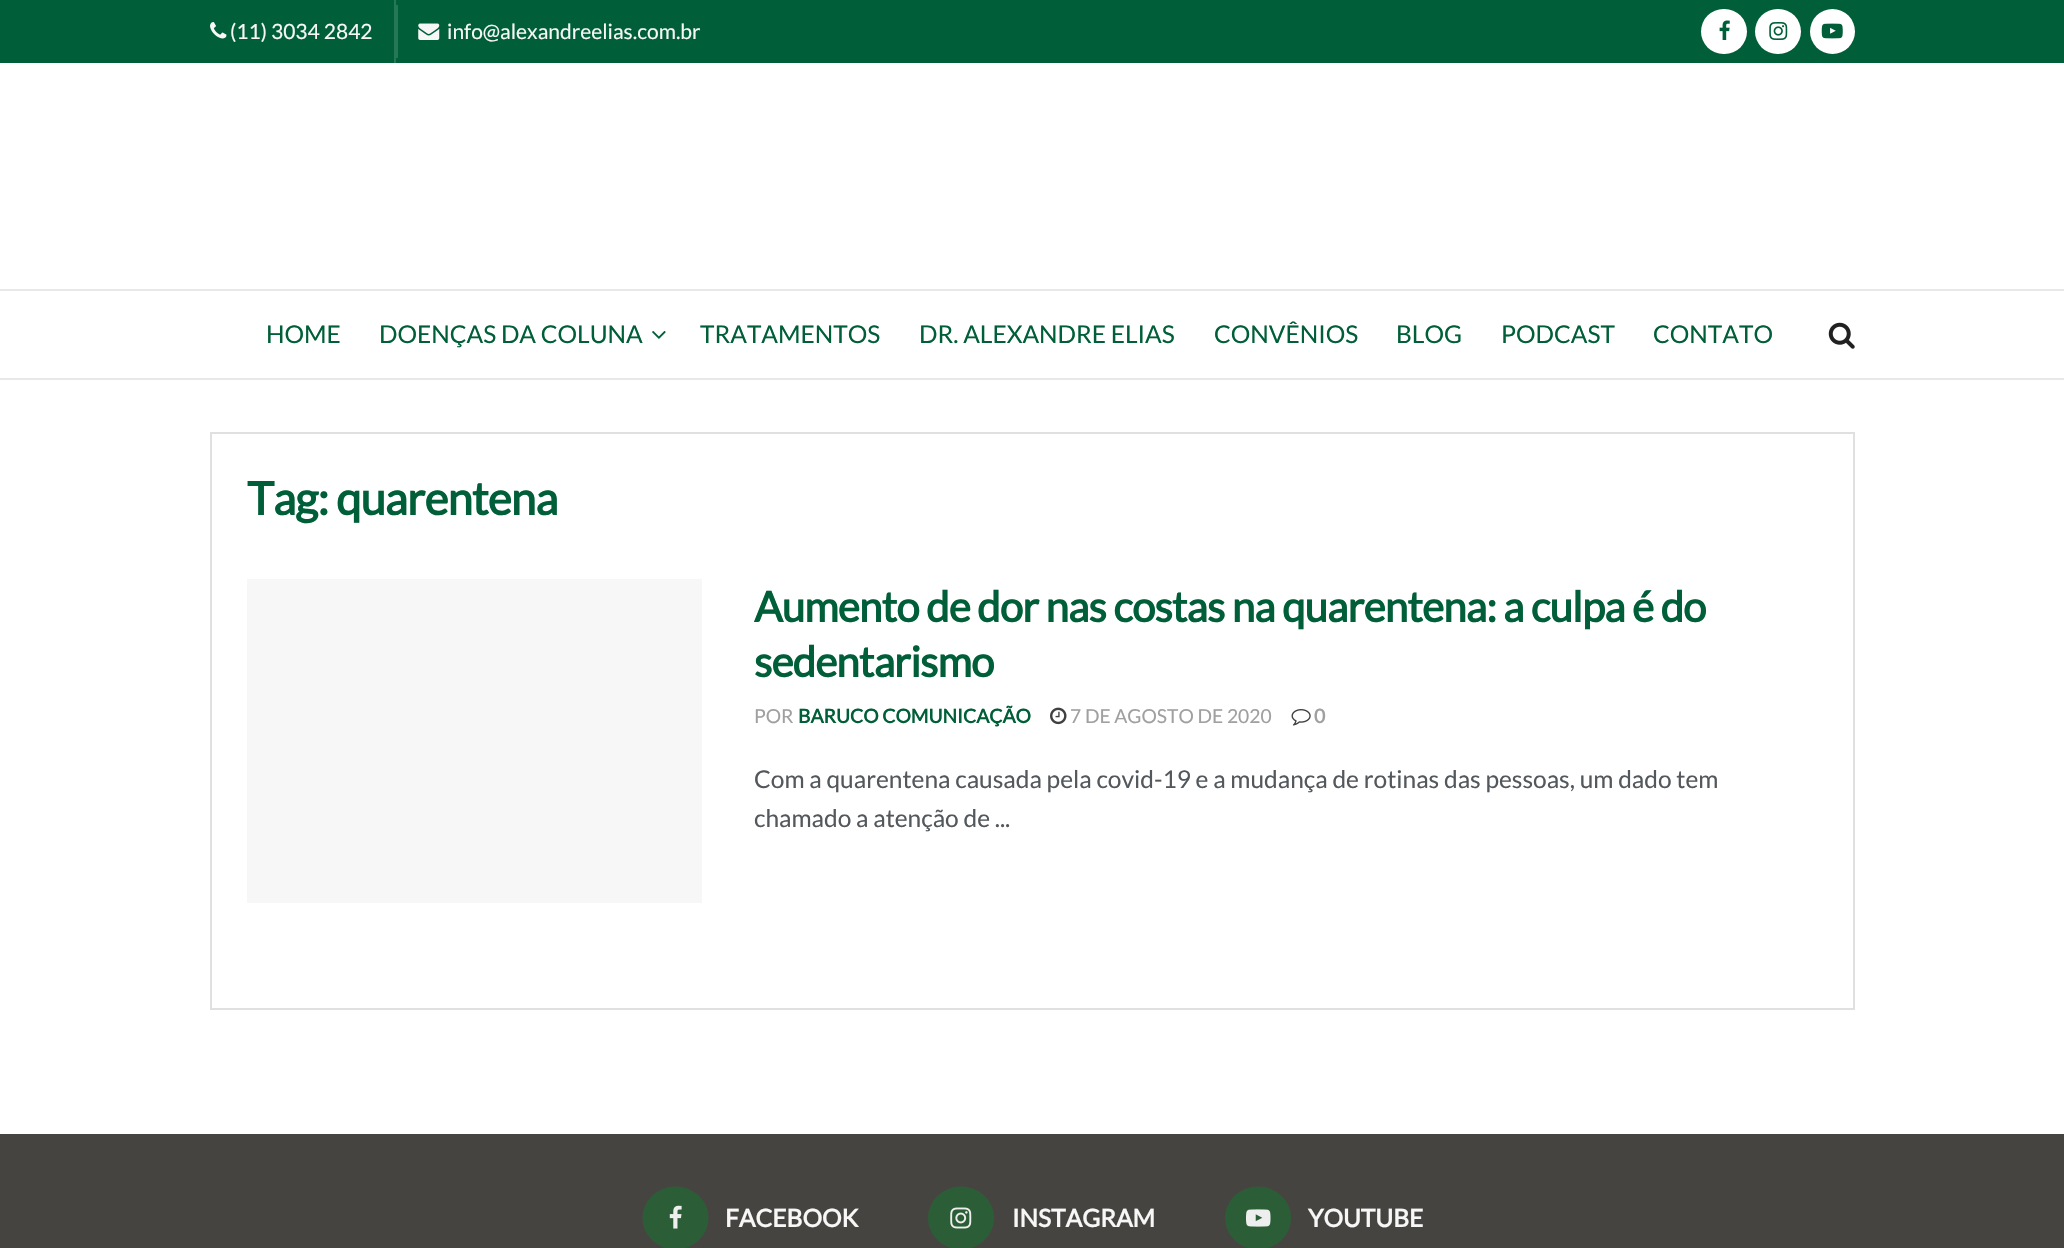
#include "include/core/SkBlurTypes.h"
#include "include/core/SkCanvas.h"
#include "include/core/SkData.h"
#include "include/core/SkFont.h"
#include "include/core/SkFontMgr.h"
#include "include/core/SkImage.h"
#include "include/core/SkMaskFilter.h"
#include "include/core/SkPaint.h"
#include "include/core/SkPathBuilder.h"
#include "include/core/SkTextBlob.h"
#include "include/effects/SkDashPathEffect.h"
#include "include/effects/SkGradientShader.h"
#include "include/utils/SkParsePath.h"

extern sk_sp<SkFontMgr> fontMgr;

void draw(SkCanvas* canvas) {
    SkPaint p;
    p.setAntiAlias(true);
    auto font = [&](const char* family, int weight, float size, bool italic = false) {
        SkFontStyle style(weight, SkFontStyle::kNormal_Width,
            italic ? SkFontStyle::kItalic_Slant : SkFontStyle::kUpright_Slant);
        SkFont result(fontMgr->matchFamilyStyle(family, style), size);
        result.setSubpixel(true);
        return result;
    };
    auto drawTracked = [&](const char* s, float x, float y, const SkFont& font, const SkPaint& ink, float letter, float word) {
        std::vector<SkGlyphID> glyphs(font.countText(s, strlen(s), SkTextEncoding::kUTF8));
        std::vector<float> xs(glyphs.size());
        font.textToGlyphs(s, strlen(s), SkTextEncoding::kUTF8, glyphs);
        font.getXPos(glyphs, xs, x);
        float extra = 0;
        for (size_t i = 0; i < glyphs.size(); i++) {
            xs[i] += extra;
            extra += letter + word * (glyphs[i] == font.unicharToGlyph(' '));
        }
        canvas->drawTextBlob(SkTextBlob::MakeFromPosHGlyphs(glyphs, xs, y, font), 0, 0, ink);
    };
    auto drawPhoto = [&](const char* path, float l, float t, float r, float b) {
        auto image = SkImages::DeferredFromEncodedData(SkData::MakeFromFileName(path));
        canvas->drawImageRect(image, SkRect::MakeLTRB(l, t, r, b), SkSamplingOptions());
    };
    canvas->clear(0xFFFFFFFF);
    p.setColor(0xFF005F38);
    canvas->drawRect(SkRect::MakeLTRB(0, 0, 2064, 63), p);
    p.setColor(0xFF267756);
    canvas->drawRect(SkRect::MakeLTRB(394, 0, 396, 63), p);
    drawPhoto("media/1.png", 210, 22, 227, 39);
    auto font1 = font("Lato", 400, 21);
    p.setColor(0xFFF7F7F7);
    canvas->drawString("(11) 3034 2842", 230, 39, font1, p);
    p.setColor(0xFF267756);
    canvas->drawRect(SkRect::MakeLTRB(396, 5, 398, 58), p);
    drawPhoto("media/2.png", 418, 23, 440, 40);
    p.setColor(0xFFF7F7F7);
    canvas->drawString("info@alexandreelias.com.br", 447, 39, font1, p);
    p.setColor(0xFFFFFFFF);
    canvas->drawRoundRect(SkRect::MakeLTRB(1701, 9, 1747, 54), 22.5f, 22.5f, p);
    drawPhoto("media/3.png", 1719, 20, 1730, 40);
    canvas->drawRoundRect(SkRect::MakeLTRB(1755, 9, 1801, 54), 22.5f, 22.5f, p);
    drawPhoto("media/4.png", 1769, 22, 1788, 40);
    canvas->drawCircle(1832.5f, 31.5f, 22.5f, p);
    drawPhoto("media/5.png", 1821, 23, 1843, 39);
    p.setColor(0xFFE8E8E8);
    canvas->drawRect(SkRect::MakeLTRB(0, 289, 2064, 291), p);
    canvas->drawRect(SkRect::MakeLTRB(0, 378, 2064, 380), p);
    auto font2 = font("Lato", 400, 24.5f);
    p.setColor(0xFF005F38);
    canvas->drawString("HOME", 266, 343, font2, p);
    canvas->drawString("DOENÇAS DA COLUNA", 379, 343, font2, p);
    drawPhoto("media/6.png", 652, 331, 666, 339);
    {
        const struct { const char* s; float x, y; } items[] = {
            {"TRATAMENTOS", 700, 343},
            {"DR. ALEXANDRE ELIAS", 919, 343},
            {"CONVÊNIOS", 1214, 343},
            {"BLOG", 1396, 343},
            {"PODCAST", 1501, 343},
            {"CONTATO", 1653, 343},
        };
        for (auto [s, x, y] : items) {
            canvas->drawString(s, x, y, font2, p);
        }
    }
    drawPhoto("media/7.png", 1828, 322, 1855, 349);
    p.setStyle(SkPaint::kStroke_Style);
    p.setStrokeWidth(2);
    p.setColor(0xFFE0E0E0);
    canvas->drawRect(SkRect::MakeLTRB(211, 433, 1854, 1009), p);
    auto font3 = font("Lato", 700, 45.5f);
    p.setStyle(SkPaint::kFill_Style);
    p.setColor(0xFF005F38);
    drawTracked("Tag: quarentena", 247, 515, font3, p, -0.9f, 0);
    p.setColor(0xFFF7F7F7);
    canvas->drawRect(SkRect::MakeLTRB(247, 579, 702, 903), p);
    auto font4 = font("Lato", 700, 42);
    p.setColor(0xFF005F38);
    drawTracked("Aumento de dor nas costas na quarentena: a culpa é do", 754, 622, font4, p, -0.85f, 0);
    drawTracked("sedentarismo", 754, 677, font4, p, -0.85f, 0);
    auto font5 = font("Lato", 400, 19.25f);
    p.setColor(0xFFA0A0A0);
    canvas->drawString("POR", 754, 723, font5, p);
    auto font6 = font("Lato", 700, 19.25f);
    p.setColor(0xFF005F38);
    canvas->drawString("BARUCO COMUNICAÇÃO", 798, 723, font6, p);
    drawPhoto("media/8.png", 1050, 707, 1067, 725);
    p.setColor(0xFFA0A0A0);
    canvas->drawString("7 DE AGOSTO DE 2020", 1070, 723, font5, p);
    drawPhoto("media/9.png", 1291, 709, 1311, 726);
    canvas->drawString("0", 1314, 723, font6, p);
    p.setColor(0xFF53585C);
    canvas->drawString("Com a quarentena causada pela covid-19 e a mudança de rotinas das pessoas, um dado tem", 754, 788, font2, p);
    canvas->drawString("chamado a atenção de ...", 754, 827, font2, p);
    p.setColor(0xFF454440);
    canvas->drawRect(SkRect::MakeLTRB(0, 1134, 2064, 1248), p);
    p.setColor(0xFF2B5E36);
    canvas->drawOval(SkRect::MakeLTRB(642.5f, 1186.5f, 708.5f, 1249.5f), p);
    drawPhoto("media/10.png", 669, 1205, 682, 1229);
    auto font7 = font("Lato", 700, 24.5f);
    p.setColor(0xFFF7F7F7);
    canvas->drawString("FACEBOOK", 725, 1227, font7, p);
    p.setColor(0xFF2B5E36);
    canvas->drawOval(SkRect::MakeLTRB(928, 1186.5f, 994, 1249.5f), p);
    drawPhoto("media/11.png", 950, 1207, 972, 1229);
    p.setColor(0xFFF7F7F7);
    canvas->drawString("INSTAGRAM", 1012, 1227, font7, p);
    p.setColor(0xFF2B5E36);
    canvas->drawOval(SkRect::MakeLTRB(1225, 1186.5f, 1291, 1249.5f), p);
    drawPhoto("media/12.png", 1246, 1209, 1271, 1227);
    p.setColor(0xFFF7F7F7);
    canvas->drawString("YOUTUBE", 1308, 1227, font7, p);
}
